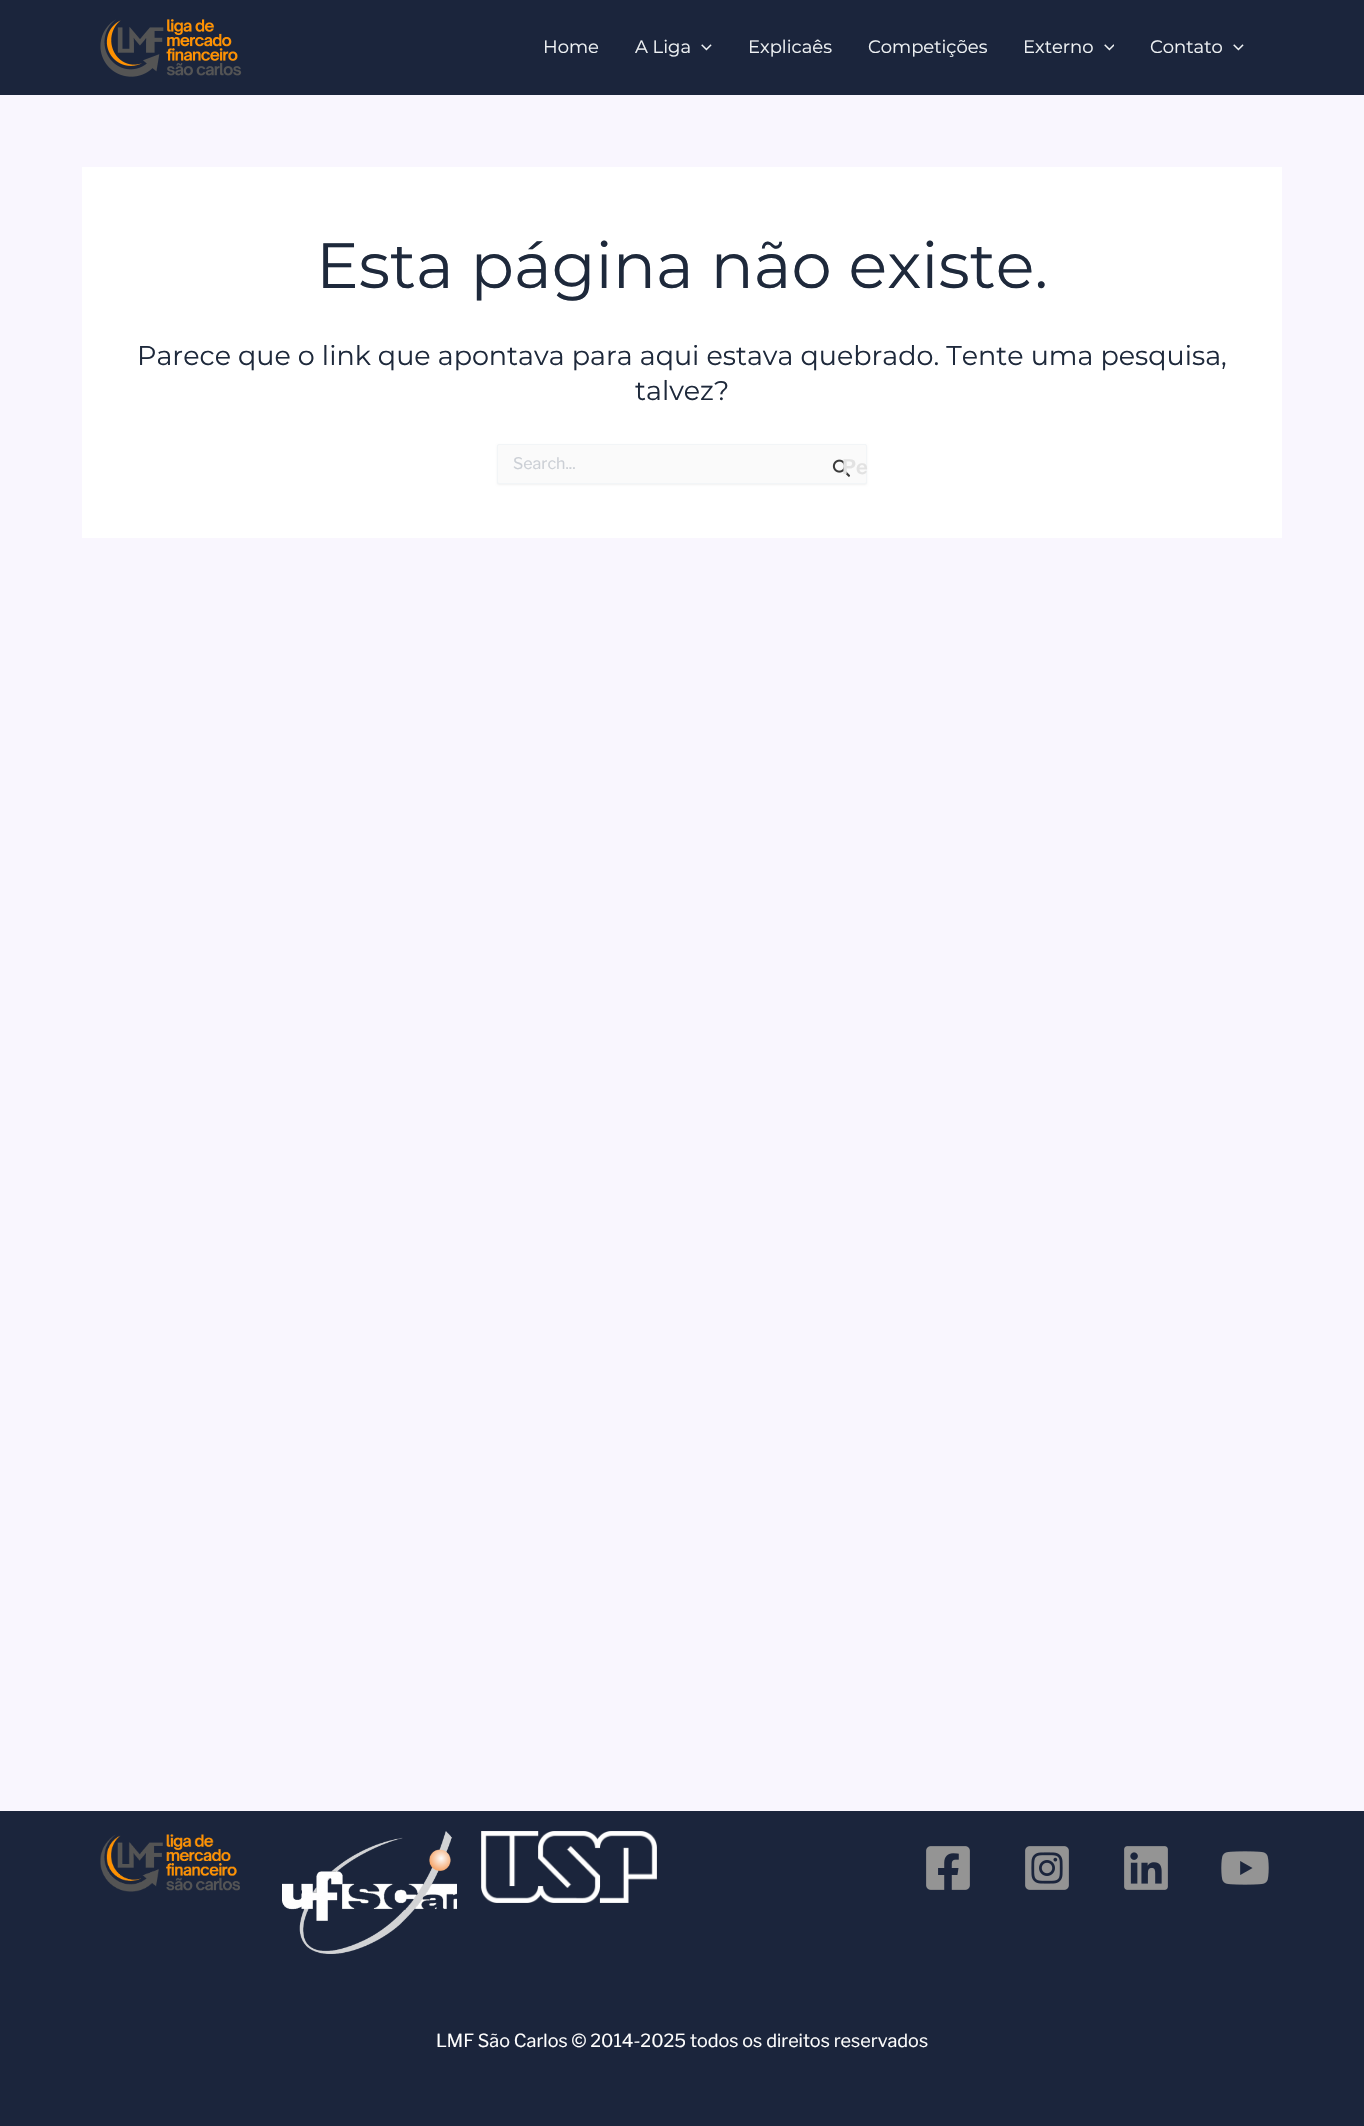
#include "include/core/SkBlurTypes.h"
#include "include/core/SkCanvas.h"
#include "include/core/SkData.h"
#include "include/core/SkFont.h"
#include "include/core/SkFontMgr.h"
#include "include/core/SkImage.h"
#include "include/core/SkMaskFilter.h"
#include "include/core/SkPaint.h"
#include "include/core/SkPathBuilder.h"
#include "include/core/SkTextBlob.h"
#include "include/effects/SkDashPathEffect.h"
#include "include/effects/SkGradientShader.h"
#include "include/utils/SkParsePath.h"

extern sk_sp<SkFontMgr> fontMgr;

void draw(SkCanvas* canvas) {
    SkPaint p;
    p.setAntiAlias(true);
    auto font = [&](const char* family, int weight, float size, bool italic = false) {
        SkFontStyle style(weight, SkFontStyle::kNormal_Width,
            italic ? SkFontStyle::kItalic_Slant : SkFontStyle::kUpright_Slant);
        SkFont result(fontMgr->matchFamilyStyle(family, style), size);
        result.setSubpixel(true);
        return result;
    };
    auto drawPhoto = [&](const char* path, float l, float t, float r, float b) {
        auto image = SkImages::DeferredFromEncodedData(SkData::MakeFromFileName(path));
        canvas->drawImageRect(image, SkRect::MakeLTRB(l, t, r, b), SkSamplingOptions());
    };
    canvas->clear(0xFFF9F6FE);
    p.setColor(0xFF1B253C);
    canvas->drawRect(SkRect::MakeLTRB(0, 0, 1364, 95), p);
    drawPhoto("media/1.png", 100, 19, 242, 77);
    auto font1 = font("Montserrat", 400, 18);
    p.setColor(0xFFF0F3F5);
    canvas->drawString("Home", 543, 53, font1, p);
    canvas->drawString("A Liga", 635, 53, font1, p);
    drawPhoto("media/2.png", 701, 44, 712, 51);
    {
        const struct { const char* s; float x, y; } items[] = {
            {"Explicaês", 748, 53},
            {"Competições", 868, 53},
            {"Externo", 1023, 53},
        };
        for (auto [s, x, y] : items) {
            canvas->drawString(s, x, y, font1, p);
        }
    }
    drawPhoto("media/3.png", 1104, 44, 1114, 51);
    canvas->drawString("Contato", 1150, 53, font1, p);
    drawPhoto("media/2.png", 1233, 44, 1244, 51);
    p.setColor(0xFFFFFFFF);
    canvas->drawRect(SkRect::MakeLTRB(82, 167, 1282, 538), p);
    auto font2 = font("Montserrat", 400, 64);
    p.setColor(0xFF1E293B);
    canvas->drawString("Esta página não existe.", 316, 288, font2, p);
    auto font3 = font("Montserrat", 400, 27);
    canvas->drawString("Parece que o link que apontava para aqui estava quebrado. Tente uma pesquisa,", 137, 365, font3, p);
    canvas->drawString("talvez?", 635, 400, font3, p);
    p.setColor(0x0D000000);
    p.setMaskFilter(SkMaskFilter::MakeBlur(kNormal_SkBlurStyle, 1));
    canvas->drawRoundRect(SkRect::MakeLTRB(497, 445, 867, 485), 2, 2, p);
    p.setMaskFilter(nullptr);
    p.setColor(0xFFFAFAFA);
    canvas->drawRoundRect(SkRect::MakeLTRB(497.5f, 444.5f, 866.5f, 483.5f), 1.5f, 1.5f, p);
    p.setStyle(SkPaint::kStroke_Style);
    p.setStrokeWidth(1);
    p.setColor(0xFFF2F5F7);
    canvas->drawRoundRect(SkRect::MakeLTRB(497.5f, 444.5f, 866.5f, 483.5f), 1.5f, 1.5f, p);
    auto font4 = font("Libre Franklin", 400, 16);
    p.setStyle(SkPaint::kFill_Style);
    p.setColor(0xFFCBCFD5);
    canvas->drawString("Search...", 513, 469, font4, p);
    drawPhoto("media/4.png", 832, 459, 850, 477);
    auto font5 = font("Libre Franklin", 600, 20);
    p.setColor(0xFFE2E2E2);
    canvas->drawString("Pe", 842, 474, font5, p);
    p.setColor(0xFF1B253C);
    canvas->drawRect(SkRect::MakeLTRB(0, 1811, 1364, 2126), p);
    drawPhoto("media/5.png", 100, 1834, 240, 1892);
    drawPhoto("media/6.png", 282, 1831, 457, 1954);
    drawPhoto("media/7.png", 481, 1831, 657, 1903);
    drawPhoto("media/8.png", 926, 1846, 970, 1890);
    drawPhoto("media/9.png", 1025, 1846, 1069, 1890);
    drawPhoto("media/10.png", 1124, 1846, 1168, 1890);
    drawPhoto("media/11.png", 1221, 1851, 1269, 1885);
    auto font6 = font("Libre Franklin", 400, 18);
    p.setColor(0xFFFFFFFF);
    canvas->drawString("LMF São Carlos © 2014-2025 todos os direitos reservados", 436, 2047, font6, p);
}
